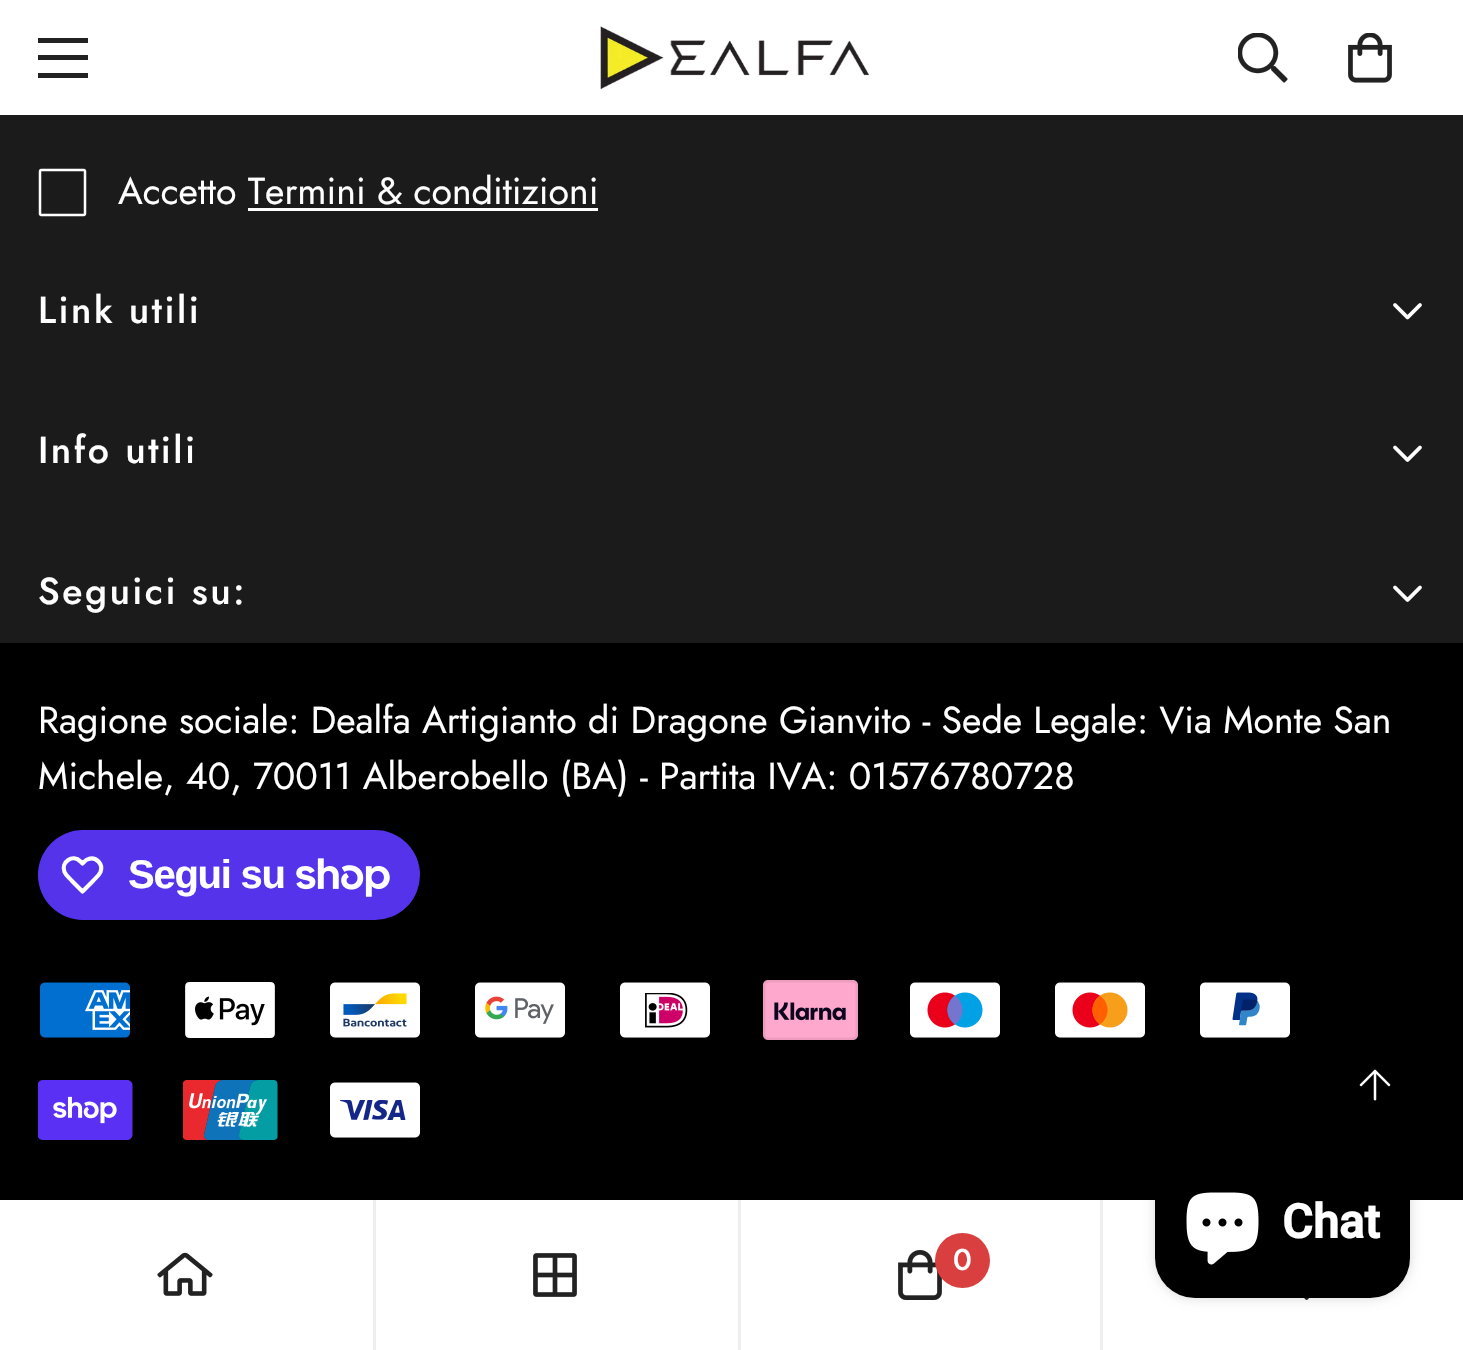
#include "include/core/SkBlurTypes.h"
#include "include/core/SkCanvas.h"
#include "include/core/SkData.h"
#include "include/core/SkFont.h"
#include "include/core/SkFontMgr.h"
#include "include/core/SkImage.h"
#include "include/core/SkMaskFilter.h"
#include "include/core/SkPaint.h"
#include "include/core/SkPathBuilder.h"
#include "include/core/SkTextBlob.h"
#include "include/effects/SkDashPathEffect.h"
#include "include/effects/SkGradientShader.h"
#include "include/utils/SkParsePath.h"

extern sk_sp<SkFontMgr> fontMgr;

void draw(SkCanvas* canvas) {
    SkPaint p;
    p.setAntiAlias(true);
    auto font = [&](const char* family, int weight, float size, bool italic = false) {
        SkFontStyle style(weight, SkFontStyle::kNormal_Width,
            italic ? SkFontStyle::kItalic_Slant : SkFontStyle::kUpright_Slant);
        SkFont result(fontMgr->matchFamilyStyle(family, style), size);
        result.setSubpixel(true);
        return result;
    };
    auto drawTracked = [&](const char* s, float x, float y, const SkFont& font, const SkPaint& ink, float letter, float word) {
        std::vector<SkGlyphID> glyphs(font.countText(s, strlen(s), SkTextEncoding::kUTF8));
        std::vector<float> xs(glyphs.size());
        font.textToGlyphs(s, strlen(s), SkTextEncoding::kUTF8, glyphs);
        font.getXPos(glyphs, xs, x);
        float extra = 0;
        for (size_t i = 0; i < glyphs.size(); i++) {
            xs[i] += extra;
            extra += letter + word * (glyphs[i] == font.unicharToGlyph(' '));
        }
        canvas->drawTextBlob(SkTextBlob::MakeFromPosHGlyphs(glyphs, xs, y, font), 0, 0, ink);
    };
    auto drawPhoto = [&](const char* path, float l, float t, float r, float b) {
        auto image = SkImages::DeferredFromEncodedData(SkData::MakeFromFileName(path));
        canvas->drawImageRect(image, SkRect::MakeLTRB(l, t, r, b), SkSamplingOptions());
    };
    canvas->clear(0xFF1B1B1B);
    {
        const struct { float l, t, r, b; SkColor color; } items[] = {
            {0, 0, 1463, 115, 0xFFFFFFFF},
            {38, 55, 88, 60, 0xFF222222},
            {38, 38, 88, 43, 0xFF222222},
            {38, 73, 88, 78, 0xFF222222},
        };
        for (auto [l, t, r, b, color] : items) {
            p.setColor(color);
            canvas->drawRect(SkRect::MakeLTRB(l, t, r, b), p);
        }
    }
    drawPhoto("media/1.png", 600, 26, 870, 90);
    drawPhoto("media/2.png", 1238, 33, 1288, 83);
    drawPhoto("media/3.png", 1348, 33, 1392, 83);
    drawPhoto("media/4.png", 38, 168, 87, 217);
    auto font1 = font("Jost", 400, 37.5f);
    p.setColor(0xFFFFFFFF);
    canvas->drawString("Accetto Termini & conditizioni", 118, 204, font1, p);
    canvas->drawRect(SkRect::MakeLTRB(248, 208, 598, 211), p);
    auto font2 = font("Jost", 500, 37.5f);
    drawTracked("Link utili", 38, 323, font2, p, 2.5f, 0);
    drawPhoto("media/5.png", 1393, 303, 1422, 320);
    drawTracked("Info utili", 38, 463, font2, p, 2.5f, 0);
    drawPhoto("media/6.png", 1393, 445, 1422, 462);
    drawTracked("Seguici su:", 38, 604, font2, p, 2.5f, 0);
    drawPhoto("media/6.png", 1393, 585, 1422, 602);
    p.setColor(0xFF000000);
    canvas->drawRect(SkRect::MakeLTRB(0, 643, 1463, 1200), p);
    p.setColor(0xFFFFFFFF);
    canvas->drawString("Ragione sociale: Dealfa Artigianto di Dragone Gianvito - Sede Legale: Via Monte San", 38, 733, font1, p);
    canvas->drawString("Michele, 40, 70011 Alberobello (BA) - Partita IVA: 01576780728", 38, 789, font1, p);
    p.setColor(0xFF5433EB);
    canvas->drawRoundRect(SkRect::MakeLTRB(38, 830, 420, 920), 45, 45, p);
    p.setStyle(SkPaint::kStroke_Style);
    p.setStrokeWidth(4.2f);
    p.setStrokeJoin(SkPaint::kRound_Join);
    p.setColor(0xFFFFFFFF);
    canvas->drawPath(SkPathBuilder().moveTo(80.5f, 861.5f).lineTo(82.5f, 863.5f).cubicTo(84.5f, 861.5f, 86, 859.5f, 88.5f, 859).cubicTo(96.5f, 856.5f, 103.5f, 864.5f, 100.5f, 872).cubicTo(99, 875.5f, 95.5f, 878, 93, 881).lineTo(82.5f, 891.5f).lineTo(72, 881).cubicTo(69.5f, 878, 66, 875.5f, 64.5f, 872).cubicTo(60.5f, 862, 73, 853.5f, 80.5f, 861.5f).close().detach(), p);
    auto font3 = font("Liberation Sans", 700, 40);
    p.setStyle(SkPaint::kFill_Style);
    drawTracked("Segui su", 128, 888, font3, p, -1.25f, 0);
    drawPhoto("media/7.png", 296, 858, 390, 897);
    drawPhoto("media/8.png", 40, 982, 130, 1038);
    drawPhoto("media/9.png", 185, 982, 275, 1038);
    drawPhoto("media/10.png", 330, 982, 420, 1038);
    drawPhoto("media/11.png", 475, 982, 565, 1038);
    drawPhoto("media/12.png", 620, 982, 710, 1038);
    drawPhoto("media/13.png", 763, 980, 858, 1040);
    drawPhoto("media/14.png", 910, 982, 1000, 1038);
    drawPhoto("media/15.png", 1055, 982, 1145, 1038);
    drawPhoto("media/16.png", 1200, 982, 1290, 1038);
    drawPhoto("media/17.png", 38, 1080, 133, 1140);
    drawPhoto("media/18.png", 183, 1080, 278, 1140);
    drawPhoto("media/19.png", 330, 1082, 420, 1138);
    drawPhoto("media/20.png", 1359, 1069, 1391, 1101);
    canvas->drawRect(SkRect::MakeLTRB(0, 1200, 1463, 1350), p);
    drawPhoto("media/25.png", 1304, 1298, 1310, 1300);
    p.setColor(0x26000000);
    p.setMaskFilter(SkMaskFilter::MakeBlur(kNormal_SkBlurStyle, 6));
    canvas->drawRoundRect(SkRect::MakeLTRB(1155, 1148, 1410, 1298), 40, 40, p);
    p.setMaskFilter(nullptr);
    p.setColor(0xFF000000);
    canvas->drawRoundRect(SkRect::MakeLTRB(1155, 1148, 1410, 1298), 40, 40, p);
    drawPhoto("media/21.png", 1186, 1192, 1259, 1265);
    auto font4 = font("Roboto", 700, 47);
    p.setColor(0xFFFFFFFF);
    canvas->drawString("Chat", 1282, 1238, font4, p);
    p.setColor(0xFFEEEEEE);
    canvas->drawRect(SkRect::MakeLTRB(373, 1200, 376, 1350), p);
    drawPhoto("media/22.png", 157, 1252, 213, 1296);
    canvas->drawRect(SkRect::MakeLTRB(738, 1200, 741, 1350), p);
    drawPhoto("media/23.png", 533, 1253, 577, 1297);
    canvas->drawRect(SkRect::MakeLTRB(1100, 1200, 1103, 1350), p);
    drawPhoto("media/24.png", 898, 1250, 942, 1300);
    p.setColor(0xFFDA3F3F);
    canvas->drawCircle(962.5f, 1260.5f, 27.5f, p);
    auto font5 = font("Jost", 500, 30);
    p.setColor(0xFFFFFFFF);
    canvas->drawString("0", 953, 1270, font5, p);
}
